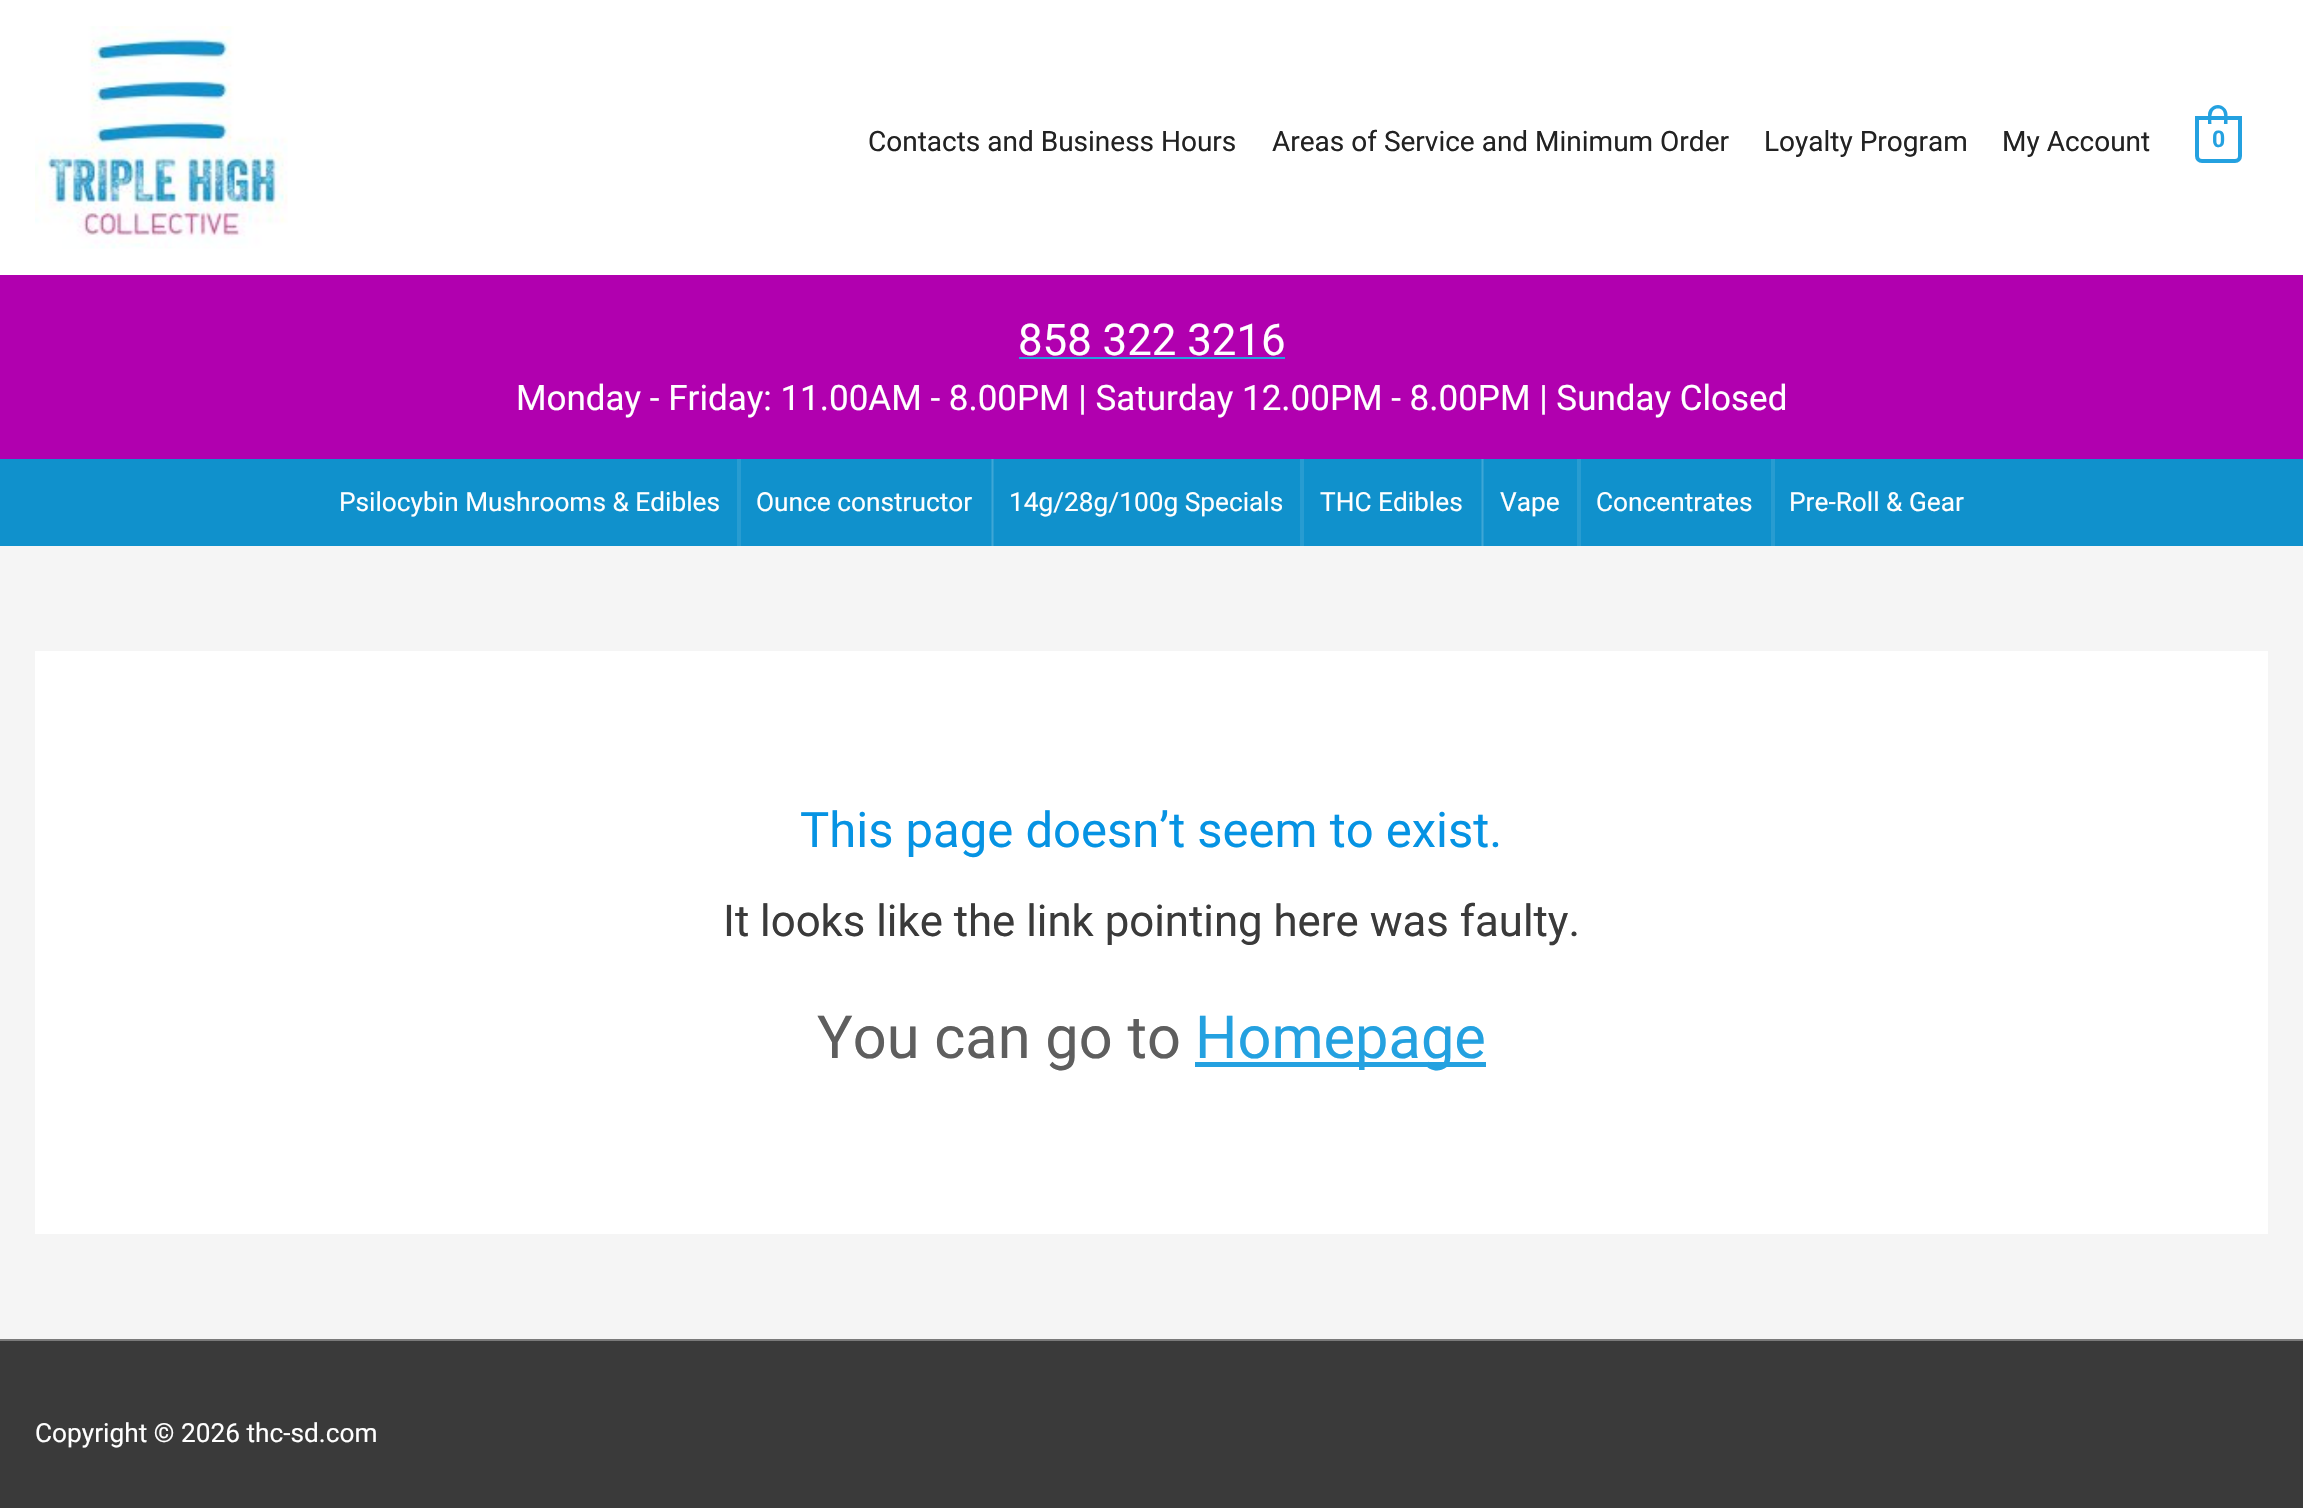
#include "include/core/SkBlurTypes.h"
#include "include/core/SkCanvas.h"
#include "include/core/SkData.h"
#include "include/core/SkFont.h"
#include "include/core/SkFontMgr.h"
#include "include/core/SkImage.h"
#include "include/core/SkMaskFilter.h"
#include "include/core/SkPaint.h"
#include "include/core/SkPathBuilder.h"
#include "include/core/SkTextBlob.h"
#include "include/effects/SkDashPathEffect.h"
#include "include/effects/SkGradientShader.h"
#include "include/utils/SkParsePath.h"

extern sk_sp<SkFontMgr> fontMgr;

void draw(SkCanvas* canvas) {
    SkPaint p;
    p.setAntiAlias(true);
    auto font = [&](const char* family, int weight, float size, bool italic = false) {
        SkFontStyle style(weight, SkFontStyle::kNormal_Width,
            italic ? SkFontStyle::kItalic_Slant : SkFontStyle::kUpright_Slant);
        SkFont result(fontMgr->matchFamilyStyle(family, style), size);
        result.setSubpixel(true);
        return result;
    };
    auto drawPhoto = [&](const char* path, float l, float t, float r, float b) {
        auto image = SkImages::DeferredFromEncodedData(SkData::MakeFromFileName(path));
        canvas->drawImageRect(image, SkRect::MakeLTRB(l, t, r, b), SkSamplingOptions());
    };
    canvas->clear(0xFFF5F5F5);
    p.setColor(0xFFFFFFFF);
    canvas->drawRect(SkRect::MakeLTRB(0, 0, 2303, 275), p);
    drawPhoto("media/1.png", 35, 26, 288, 249);
    auto font1 = font("Roboto", 400, 28);
    p.setColor(0xFF222222);
    {
        const struct { const char* s; float x, y; } items[] = {
            {"Contacts and Business Hours", 868, 151},
            {"Areas of Service and Minimum Order", 1272, 151},
            {"Loyalty Program", 1764, 151},
            {"My Account", 2002, 151},
        };
        for (auto [s, x, y] : items) {
            canvas->drawString(s, x, y, font1, p);
        }
    }
    p.setStyle(SkPaint::kStroke_Style);
    p.setStrokeWidth(4);
    p.setColor(0xFF24A1E0);
    canvas->drawPath(SkPathBuilder().moveTo(2197, 118).lineTo(2240, 118).lineTo(2240, 156).cubicTo(2240, 159, 2238, 161, 2235, 161).lineTo(2202, 161).cubicTo(2199, 161, 2197, 159, 2197, 156).close().detach(), p);
    p.setStyle(SkPaint::kFill_Style);
    canvas->drawPath(SkPathBuilder(SkPathFillType::kEvenOdd).moveTo(2218, 105).cubicTo(2223, 105, 2227.5f, 109.5f, 2227.5f, 114.5f).lineTo(2227.5f, 124).lineTo(2208, 124).lineTo(2208, 114.5f).cubicTo(2208, 109.5f, 2212.5f, 105, 2218, 105).close().moveTo(2218, 108.5f).cubicTo(2226, 108.5f, 2224, 119, 2224, 124).lineTo(2211.5f, 124).cubicTo(2211.5f, 119, 2210, 108.5f, 2218, 108.5f).close().detach(), p);
    auto font2 = font("Roboto", 700, 23);
    canvas->drawString("0", 2212, 147, font2, p);
    p.setColor(0xFFB100AF);
    canvas->drawRect(SkRect::MakeLTRB(0, 275, 2303, 459), p);
    auto font3 = font("Roboto", 400, 43.75f);
    p.setColor(0xFFFFFFFF);
    canvas->drawString("858 322 3216", 1018, 355, font3, p);
    p.setColor(0xFF24A1E0);
    canvas->drawRect(SkRect::MakeLTRB(1019, 357, 1285, 359), p);
    auto font4 = font("Roboto", 400, 35);
    p.setColor(0xFFFFFFFF);
    canvas->drawString("Monday - Friday: 11.00AM - 8.00PM | Saturday 12.00PM - 8.00PM | Sunday Closed", 516, 410, font4, p);
    {
        const struct { float l, t, r, b; SkColor color; } items[] = {
            {0, 459, 2303, 546, 0xFF1091CC},
            {1481, 459, 1482, 546, 0xFF289CD1},
            {991, 459, 992, 546, 0xFF289CD1},
        };
        for (auto [l, t, r, b, color] : items) {
            p.setColor(color);
            canvas->drawRect(SkRect::MakeLTRB(l, t, r, b), p);
        }
    }
    auto font5 = font("Roboto", 400, 26.25f);
    p.setColor(0xFFFFFFFF);
    canvas->drawString("Psilocybin Mushrooms & Edibles", 339, 511, font5, p);
    p.setColor(0xFF289CD1);
    canvas->drawRect(SkRect::MakeLTRB(737, 459, 741, 546), p);
    p.setColor(0xFFFFFFFF);
    canvas->drawString("Ounce constructor", 756, 511, font5, p);
    p.setColor(0xFF289CD1);
    canvas->drawRect(SkRect::MakeLTRB(993, 459, 994, 546), p);
    p.setColor(0xFF3EA6D6);
    canvas->drawRect(SkRect::MakeLTRB(992, 459, 993, 546), p);
    p.setColor(0xFFFFFFFF);
    canvas->drawString("14g/28g/100g Specials", 1009, 511, font5, p);
    p.setColor(0xFF289CD1);
    canvas->drawRect(SkRect::MakeLTRB(1300, 459, 1304, 546), p);
    p.setColor(0xFFFFFFFF);
    canvas->drawString("THC Edibles", 1320, 511, font5, p);
    p.setColor(0xFF289CD1);
    canvas->drawRect(SkRect::MakeLTRB(1483, 459, 1484, 546), p);
    p.setColor(0xFF3EA6D6);
    canvas->drawRect(SkRect::MakeLTRB(1482, 459, 1483, 546), p);
    p.setColor(0xFFFFFFFF);
    canvas->drawString("Vape", 1500, 511, font5, p);
    p.setColor(0xFF289CD1);
    canvas->drawRect(SkRect::MakeLTRB(1577, 459, 1581, 546), p);
    p.setColor(0xFFFFFFFF);
    canvas->drawString("Concentrates", 1596, 511, font5, p);
    p.setColor(0xFF289CD1);
    canvas->drawRect(SkRect::MakeLTRB(1771, 459, 1775, 546), p);
    p.setColor(0xFFFFFFFF);
    canvas->drawString("Pre-Roll & Gear", 1789, 511, font5, p);
    canvas->drawRect(SkRect::MakeLTRB(35, 651, 2268, 1234), p);
    auto font6 = font("Roboto", 400, 49);
    p.setColor(0xFF0693E3);
    canvas->drawString("This page doesn’t seem to exist.", 800, 847, font6, p);
    p.setColor(0xFF3A3A3A);
    canvas->drawString("It looks like the link pointing here was faulty.", 723, 936, font3, p);
    auto font7 = font("Roboto", 400, 59.5f);
    p.setColor(0xFF5E5E5E);
    canvas->drawString("You can go to", 817, 1058, font7, p);
    p.setColor(0xFF24A1E0);
    canvas->drawRect(SkRect::MakeLTRB(1195, 1062, 1486, 1067), p);
    canvas->drawString("Homepage", 1195, 1058, font7, p);
    p.setColor(0xFF7A7A7A);
    canvas->drawRect(SkRect::MakeLTRB(0, 1339, 2303, 1341), p);
    p.setColor(0xFF3A3A3A);
    canvas->drawRect(SkRect::MakeLTRB(0, 1341, 2303, 1508), p);
    p.setColor(0xFFFFFFFF);
    canvas->drawString("Copyright © 2026 thc-sd.com", 35, 1442, font5, p);
}
